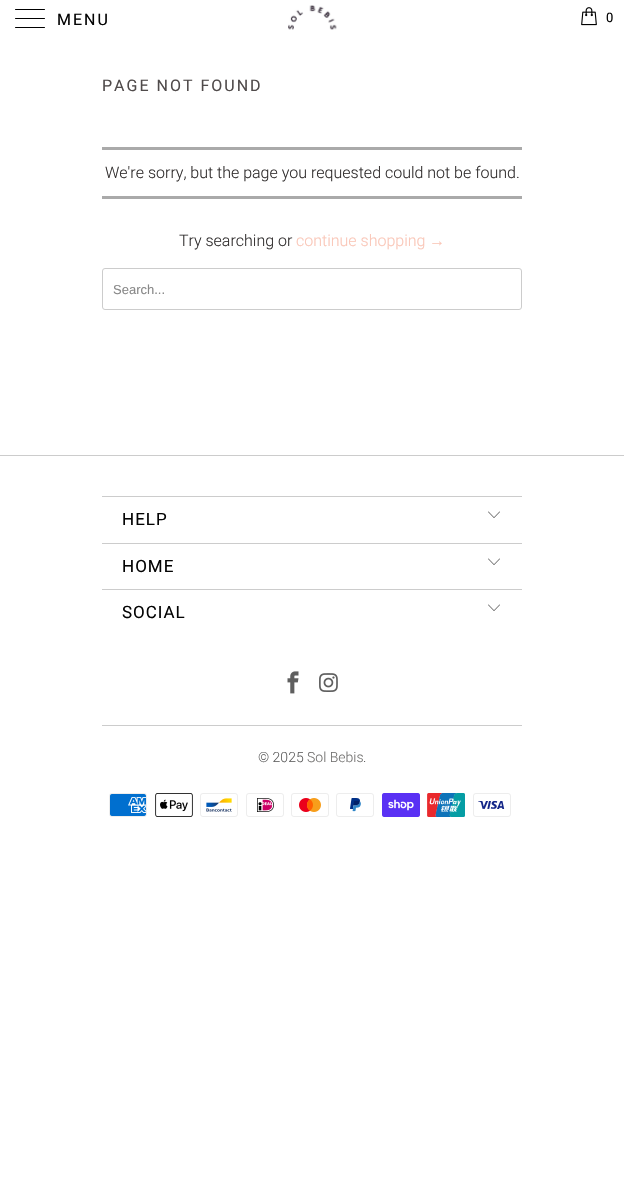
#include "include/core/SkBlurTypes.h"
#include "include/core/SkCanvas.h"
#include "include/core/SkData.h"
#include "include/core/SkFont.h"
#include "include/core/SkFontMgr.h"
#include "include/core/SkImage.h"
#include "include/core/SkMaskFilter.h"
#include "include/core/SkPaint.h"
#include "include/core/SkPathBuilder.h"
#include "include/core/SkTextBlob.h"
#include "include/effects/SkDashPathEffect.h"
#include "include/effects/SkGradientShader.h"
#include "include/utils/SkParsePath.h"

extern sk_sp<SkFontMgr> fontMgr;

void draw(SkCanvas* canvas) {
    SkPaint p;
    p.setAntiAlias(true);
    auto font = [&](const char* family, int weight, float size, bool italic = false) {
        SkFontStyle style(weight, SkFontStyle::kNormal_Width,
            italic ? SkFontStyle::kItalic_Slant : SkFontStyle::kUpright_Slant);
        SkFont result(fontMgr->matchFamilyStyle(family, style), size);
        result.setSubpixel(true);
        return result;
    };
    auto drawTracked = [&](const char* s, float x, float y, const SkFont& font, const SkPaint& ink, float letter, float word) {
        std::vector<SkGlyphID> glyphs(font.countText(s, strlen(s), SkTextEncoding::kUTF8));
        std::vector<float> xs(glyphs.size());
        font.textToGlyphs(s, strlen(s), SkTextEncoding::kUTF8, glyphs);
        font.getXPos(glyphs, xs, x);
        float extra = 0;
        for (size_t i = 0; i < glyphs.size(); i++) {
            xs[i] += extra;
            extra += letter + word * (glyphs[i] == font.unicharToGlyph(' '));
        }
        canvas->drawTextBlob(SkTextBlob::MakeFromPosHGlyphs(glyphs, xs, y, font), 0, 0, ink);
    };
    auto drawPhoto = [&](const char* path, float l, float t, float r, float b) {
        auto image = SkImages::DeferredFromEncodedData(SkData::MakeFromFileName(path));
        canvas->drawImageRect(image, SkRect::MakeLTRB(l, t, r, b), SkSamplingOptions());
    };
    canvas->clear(0xFFFFFFFF);
    p.setColor(0xFF000000);
    canvas->drawRoundRect(SkRect::MakeLTRB(15, 9, 45, 10), 0.5f, 0.5f, p);
    canvas->drawRoundRect(SkRect::MakeLTRB(15, 18, 45, 19), 0.5f, 0.5f, p);
    canvas->drawRoundRect(SkRect::MakeLTRB(15, 27, 45, 28), 0.5f, 0.5f, p);
    auto font1 = font("Roboto", 400, 16);
    p.setColor(0xFF040404);
    drawTracked("MENU", 57, 25, font1, p, 2, 0);
    drawPhoto("media/1.png", 288, 5, 337, 30);
    drawPhoto("media/2.png", 581, 7, 597, 26);
    auto font2 = font("Roboto", 400, 13);
    drawTracked("0", 606, 22, font2, p, 1, 0);
    p.setColor(0xFF504B4B);
    drawTracked("PAGE NOT FOUND", 102, 91, font1, p, 2, 0);
    p.setColor(0xFFAAAAAA);
    canvas->drawRect(SkRect::MakeLTRB(102, 147, 522, 150), p);
    canvas->drawRect(SkRect::MakeLTRB(102, 196, 522, 199), p);
    auto font3 = font("Roboto", 300, 16);
    p.setColor(0xFF322F2F);
    canvas->drawString("We're sorry, but the page you requested could not be found.", 105, 178, font3, p);
    canvas->drawString("Try searching or", 179, 246, font3, p);
    p.setColor(0xFFFAC6B7);
    canvas->drawString("continue shopping", 296, 246, font3, p);
    auto font4 = font("Liberation Serif", 400, 16);
    canvas->drawString("→", 429, 246, font4, p);
    p.setStyle(SkPaint::kStroke_Style);
    p.setStrokeWidth(1);
    p.setColor(0xFFCCCCCC);
    canvas->drawRoundRect(SkRect::MakeLTRB(102.5f, 268.5f, 521.5f, 309.5f), 2.5f, 2.5f, p);
    auto font5 = font("Liberation Sans", 400, 13);
    p.setStyle(SkPaint::kFill_Style);
    p.setColor(0xFF888888);
    canvas->drawString("Search...", 113, 294, font5, p);
    p.setColor(0xFFCCCCCC);
    canvas->drawRect(SkRect::MakeLTRB(0, 455, 624, 456), p);
    canvas->drawRect(SkRect::MakeLTRB(102, 496, 522, 497), p);
    auto font6 = font("Roboto", 400, 17);
    p.setColor(0xFF040404);
    drawTracked("HELP", 122, 525, font6, p, 1, 0);
    drawPhoto("media/3.png", 488, 511, 500, 518);
    p.setColor(0xFFCCCCCC);
    canvas->drawRect(SkRect::MakeLTRB(102, 543, 522, 544), p);
    p.setColor(0xFF040404);
    drawTracked("HOME", 122, 572, font6, p, 1, 0);
    drawPhoto("media/3.png", 488, 558, 500, 565);
    p.setColor(0xFFCCCCCC);
    canvas->drawRect(SkRect::MakeLTRB(102, 589, 522, 590), p);
    p.setColor(0xFF040404);
    drawTracked("SOCIAL", 122, 618, font6, p, 1, 0);
    drawPhoto("media/3.png", 488, 604, 500, 611);
    drawPhoto("media/4.png", 287, 671, 299, 694);
    drawPhoto("media/5.png", 319, 673, 338, 692);
    p.setColor(0xFFCCCCCC);
    canvas->drawRect(SkRect::MakeLTRB(102, 725, 522, 726), p);
    auto font7 = font("Roboto", 300, 14);
    p.setColor(0xFF5F5F5F);
    canvas->drawString("© 2025", 258, 762, font7, p);
    p.setColor(0xFF727170);
    canvas->drawString("Sol Bebis", 307, 762, font7, p);
    p.setColor(0xFF5F5F5F);
    canvas->drawString(".", 363, 762, font7, p);
    drawPhoto("media/6.png", 109, 793, 147, 817);
    drawPhoto("media/7.png", 155, 793, 193, 817);
    drawPhoto("media/8.png", 200, 793, 238, 817);
    drawPhoto("media/9.png", 246, 793, 284, 817);
    drawPhoto("media/10.png", 291, 793, 329, 817);
    drawPhoto("media/11.png", 336, 793, 374, 817);
    drawPhoto("media/12.png", 382, 793, 420, 817);
    drawPhoto("media/13.png", 427, 793, 465, 817);
    drawPhoto("media/14.png", 473, 793, 511, 817);
}
